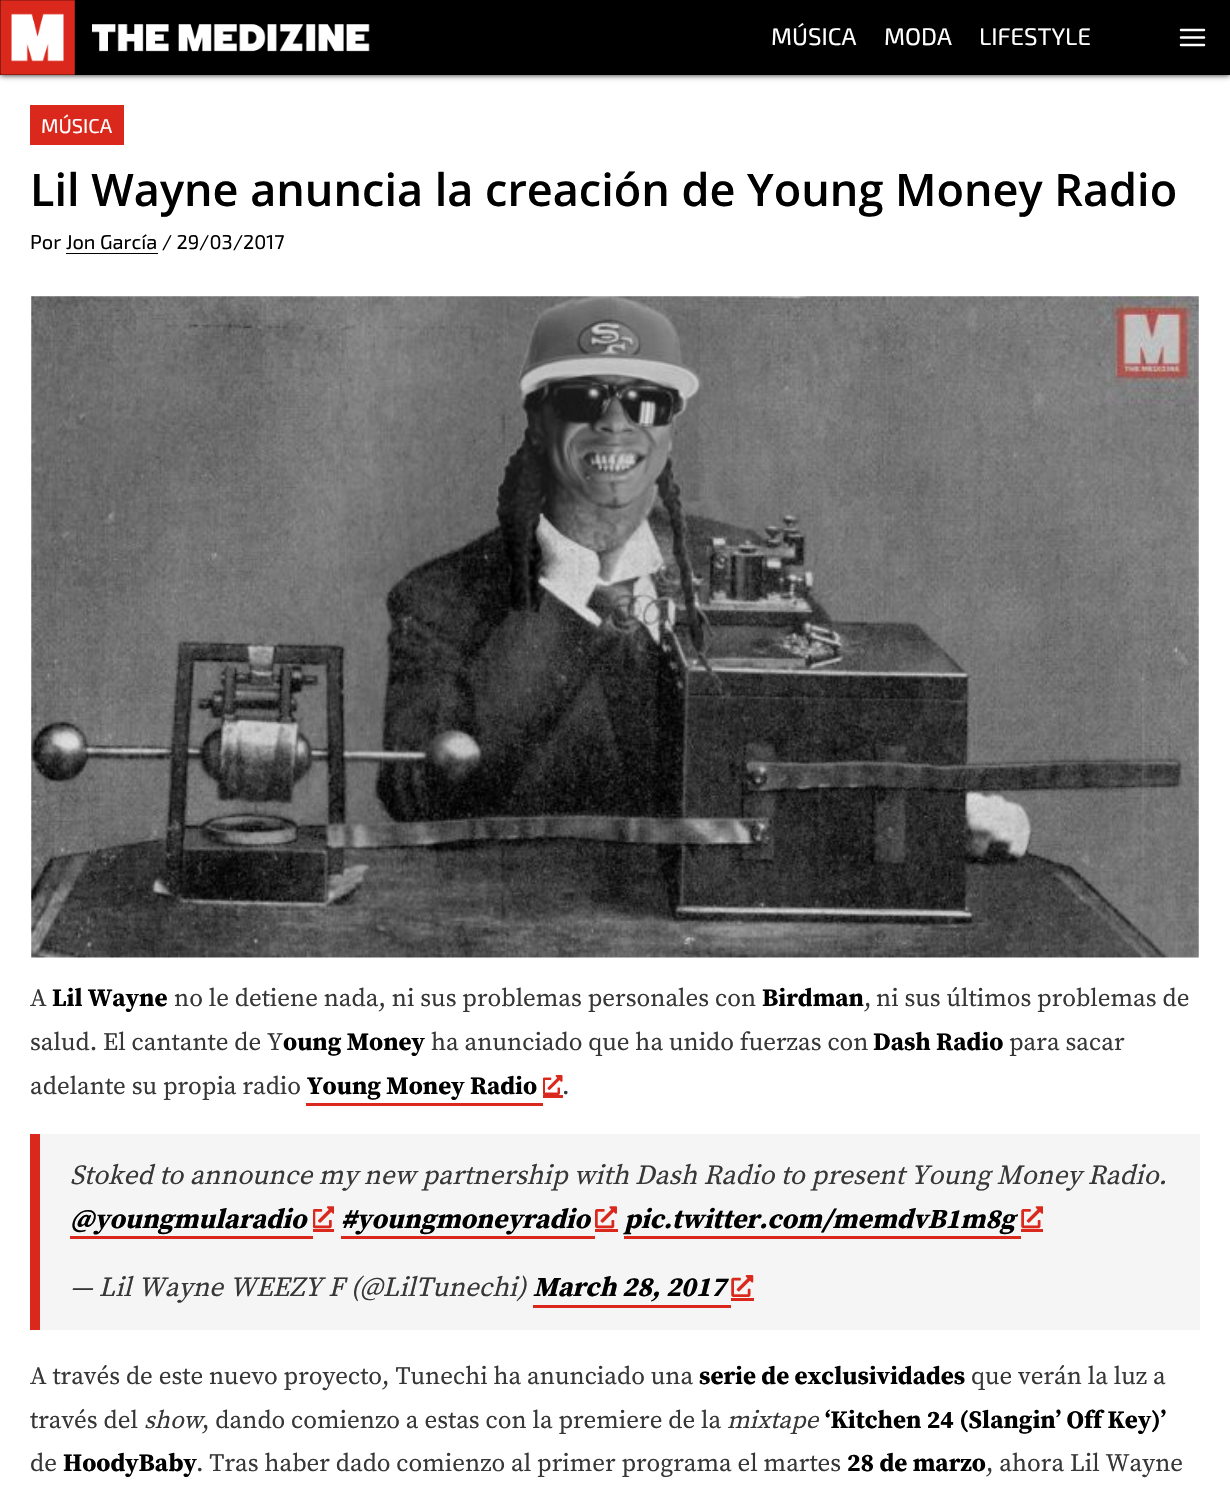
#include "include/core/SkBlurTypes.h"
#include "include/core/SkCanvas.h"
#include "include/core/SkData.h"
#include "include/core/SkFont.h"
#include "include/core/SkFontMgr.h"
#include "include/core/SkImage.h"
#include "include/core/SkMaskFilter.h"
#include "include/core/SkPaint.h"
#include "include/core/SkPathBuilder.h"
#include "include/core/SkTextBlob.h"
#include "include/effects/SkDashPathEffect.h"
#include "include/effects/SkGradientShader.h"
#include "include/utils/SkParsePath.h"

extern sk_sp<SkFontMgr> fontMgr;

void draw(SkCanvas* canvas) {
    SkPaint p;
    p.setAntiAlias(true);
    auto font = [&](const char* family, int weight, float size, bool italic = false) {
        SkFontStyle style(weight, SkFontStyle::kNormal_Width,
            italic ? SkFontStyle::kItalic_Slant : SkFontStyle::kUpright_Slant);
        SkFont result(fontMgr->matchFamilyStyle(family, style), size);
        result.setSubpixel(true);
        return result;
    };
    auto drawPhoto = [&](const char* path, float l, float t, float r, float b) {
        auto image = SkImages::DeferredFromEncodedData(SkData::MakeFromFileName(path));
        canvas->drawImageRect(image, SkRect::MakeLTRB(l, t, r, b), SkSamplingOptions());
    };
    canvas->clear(0xFFFFFFFF);
    p.setColor(0xE6000000);
    p.setMaskFilter(SkMaskFilter::MakeBlur(kNormal_SkBlurStyle, 3));
    canvas->drawRect(SkRect::MakeLTRB(0, 0, 1230, 75), p);
    p.setMaskFilter(nullptr);
    p.setColor(0xFF000000);
    canvas->drawRect(SkRect::MakeLTRB(0, 0, 1230, 75), p);
    drawPhoto("media/1.png", 0, 0, 370, 75);
    auto font1 = font("Exo 2", 400, 24);
    p.setColor(0xFFFFFFFF);
    {
        const struct { const char* s; float x, y; } items[] = {
            {"MÚSICA", 771, 45},
            {"MODA", 884, 45},
            {"LIFESTYLE", 979, 45},
        };
        for (auto [s, x, y] : items) {
            canvas->drawString(s, x, y, font1, p);
        }
    }
    p.setStyle(SkPaint::kStroke_Style);
    p.setStrokeWidth(2.5f);
    p.setStrokeCap(SkPaint::kRound_Cap);
    p.setStrokeJoin(SkPaint::kRound_Join);
    canvas->drawPath(SkPathBuilder().moveTo(1181, 37.5f).lineTo(1204, 37.5f).moveTo(1181, 30).lineTo(1204, 30).moveTo(1181, 45).lineTo(1204, 45).detach(), p);
    p.setStyle(SkPaint::kFill_Style);
    p.setColor(0xFFDA291C);
    canvas->drawRect(SkRect::MakeLTRB(30, 105, 124, 145), p);
    auto font2 = font("Exo 2", 400, 20);
    p.setColor(0xFFFFFFFF);
    canvas->drawString("MÚSICA", 41, 133, font2, p);
    auto font3 = font("Open Sans", 600, 45);
    p.setColor(0xFF000000);
    canvas->drawString("Lil Wayne anuncia la creación de Young Money Radio", 30, 206, font3, p);
    canvas->drawString("Por Jon García / 29/03/2017", 30, 249, font2, p);
    canvas->drawRect(SkRect::MakeLTRB(66, 253, 158, 254), p);
    drawPhoto("media/2.png", 31, 296, 1199, 958);
    auto font4 = font("Source Serif Pro", 400, 25);
    p.setColor(0xFF373737);
    canvas->drawString("A", 30, 1006, font4, p);
    auto font5 = font("Source Serif Pro", 700, 25);
    p.setColor(0xFF000000);
    canvas->drawString("Lil Wayne", 52, 1006, font5, p);
    p.setColor(0xFF373737);
    canvas->drawString("no le detiene nada, ni sus problemas personales con", 174, 1006, font4, p);
    p.setColor(0xFF000000);
    canvas->drawString("Birdman", 762, 1006, font5, p);
    p.setColor(0xFF373737);
    {
        const struct { const char* s; float x, y; } items[] = {
            {"ni sus últimos problemas de", 876, 1006},
            {",", 864, 1006},
            {"salud. El cantante de Y", 30, 1050},
        };
        for (auto [s, x, y] : items) {
            canvas->drawString(s, x, y, font4, p);
        }
    }
    p.setColor(0xFF000000);
    canvas->drawString("oung Money", 283, 1050, font5, p);
    p.setColor(0xFF373737);
    canvas->drawString("ha anunciado que ha unido fuerzas con", 431, 1050, font4, p);
    p.setColor(0xFF000000);
    canvas->drawString("Dash Radio", 873, 1050, font5, p);
    p.setColor(0xFF373737);
    canvas->drawString("para sacar", 1009, 1050, font4, p);
    canvas->drawString("adelante su propia radio", 30, 1094, font4, p);
    p.setColor(0xFF000000);
    canvas->drawString("Young Money Radio", 307, 1094, font5, p);
    p.setColor(0xFFDA291C);
    canvas->drawRect(SkRect::MakeLTRB(306, 1103, 543, 1106), p);
    canvas->drawRect(SkRect::MakeLTRB(543, 1095, 563, 1098), p);
    drawPhoto("media/3.png", 543, 1075, 563, 1095);
    p.setColor(0xFF373737);
    canvas->drawString(".", 562, 1094, font4, p);
    p.setColor(0xFFF5F5F5);
    canvas->drawRect(SkRect::MakeLTRB(40, 1134, 1200, 1330), p);
    p.setColor(0xFFDA291C);
    canvas->drawRect(SkRect::MakeLTRB(30, 1134, 40, 1330), p);
    auto font6 = font("Source Serif Pro", 400, 27.5f, true);
    p.setColor(0xFF373737);
    canvas->drawString("Stoked to announce my new partnership with Dash Radio to present Young Money Radio.", 70, 1184, font6, p);
    auto font7 = font("Source Serif Pro", 700, 27.5f, true);
    p.setColor(0xFF000000);
    canvas->drawString("@youngmularadio", 70, 1228, font7, p);
    p.setColor(0xFFDA291C);
    canvas->drawRect(SkRect::MakeLTRB(70, 1236, 313, 1239), p);
    canvas->drawRect(SkRect::MakeLTRB(313, 1229, 334, 1232), p);
    drawPhoto("media/4.png", 313, 1206, 334, 1229);
    p.setColor(0xFF000000);
    canvas->drawString("#youngmoneyradio", 341, 1228, font7, p);
    p.setColor(0xFFDA291C);
    canvas->drawRect(SkRect::MakeLTRB(341, 1236, 595, 1239), p);
    canvas->drawRect(SkRect::MakeLTRB(595, 1229, 618, 1232), p);
    drawPhoto("media/5.png", 595, 1206, 617, 1229);
    p.setColor(0xFF000000);
    canvas->drawString("pic.twitter.com/memdvB1m8g", 624, 1228, font7, p);
    p.setColor(0xFFDA291C);
    canvas->drawRect(SkRect::MakeLTRB(624, 1236, 1021, 1239), p);
    canvas->drawRect(SkRect::MakeLTRB(1021, 1229, 1043, 1232), p);
    drawPhoto("media/6.png", 1021, 1206, 1043, 1229);
    p.setColor(0xFF373737);
    canvas->drawString("— Lil Wayne WEEZY F (@LilTunechi)", 70, 1296, font6, p);
    p.setColor(0xFF000000);
    canvas->drawString("March 28, 2017", 533, 1296, font7, p);
    p.setColor(0xFFDA291C);
    canvas->drawRect(SkRect::MakeLTRB(533, 1305, 731, 1308), p);
    canvas->drawRect(SkRect::MakeLTRB(731, 1298, 754, 1301), p);
    drawPhoto("media/7.png", 731, 1275, 754, 1297);
    p.setColor(0xFF373737);
    canvas->drawString("A través de este nuevo proyecto, Tunechi ha anunciado una", 30, 1384, font4, p);
    p.setColor(0xFF000000);
    canvas->drawString("serie de exclusividades", 699, 1384, font5, p);
    p.setColor(0xFF373737);
    canvas->drawString("que verán la luz a", 971, 1384, font4, p);
    canvas->drawString("través del", 30, 1428, font4, p);
    auto font8 = font("Source Serif Pro", 400, 25, true);
    canvas->drawString("show", 144, 1428, font8, p);
    canvas->drawString(", dando comienzo a estas con la premiere de la", 202, 1428, font4, p);
    canvas->drawString("mixtape", 727, 1428, font8, p);
    p.setColor(0xFF000000);
    canvas->drawString("‘Kitchen 24 (Slangin’ Off Key)’", 825, 1428, font5, p);
    p.setColor(0xFF373737);
    canvas->drawString("de", 30, 1471, font4, p);
    p.setColor(0xFF000000);
    canvas->drawString("HoodyBaby", 63, 1471, font5, p);
    p.setColor(0xFF373737);
    canvas->drawString(". Tras haber dado comienzo al primer programa el martes", 196, 1471, font4, p);
    p.setColor(0xFF000000);
    canvas->drawString("28 de marzo", 847, 1471, font5, p);
    p.setColor(0xFF373737);
    canvas->drawString(", ahora Lil Wayne", 986, 1471, font4, p);
}
